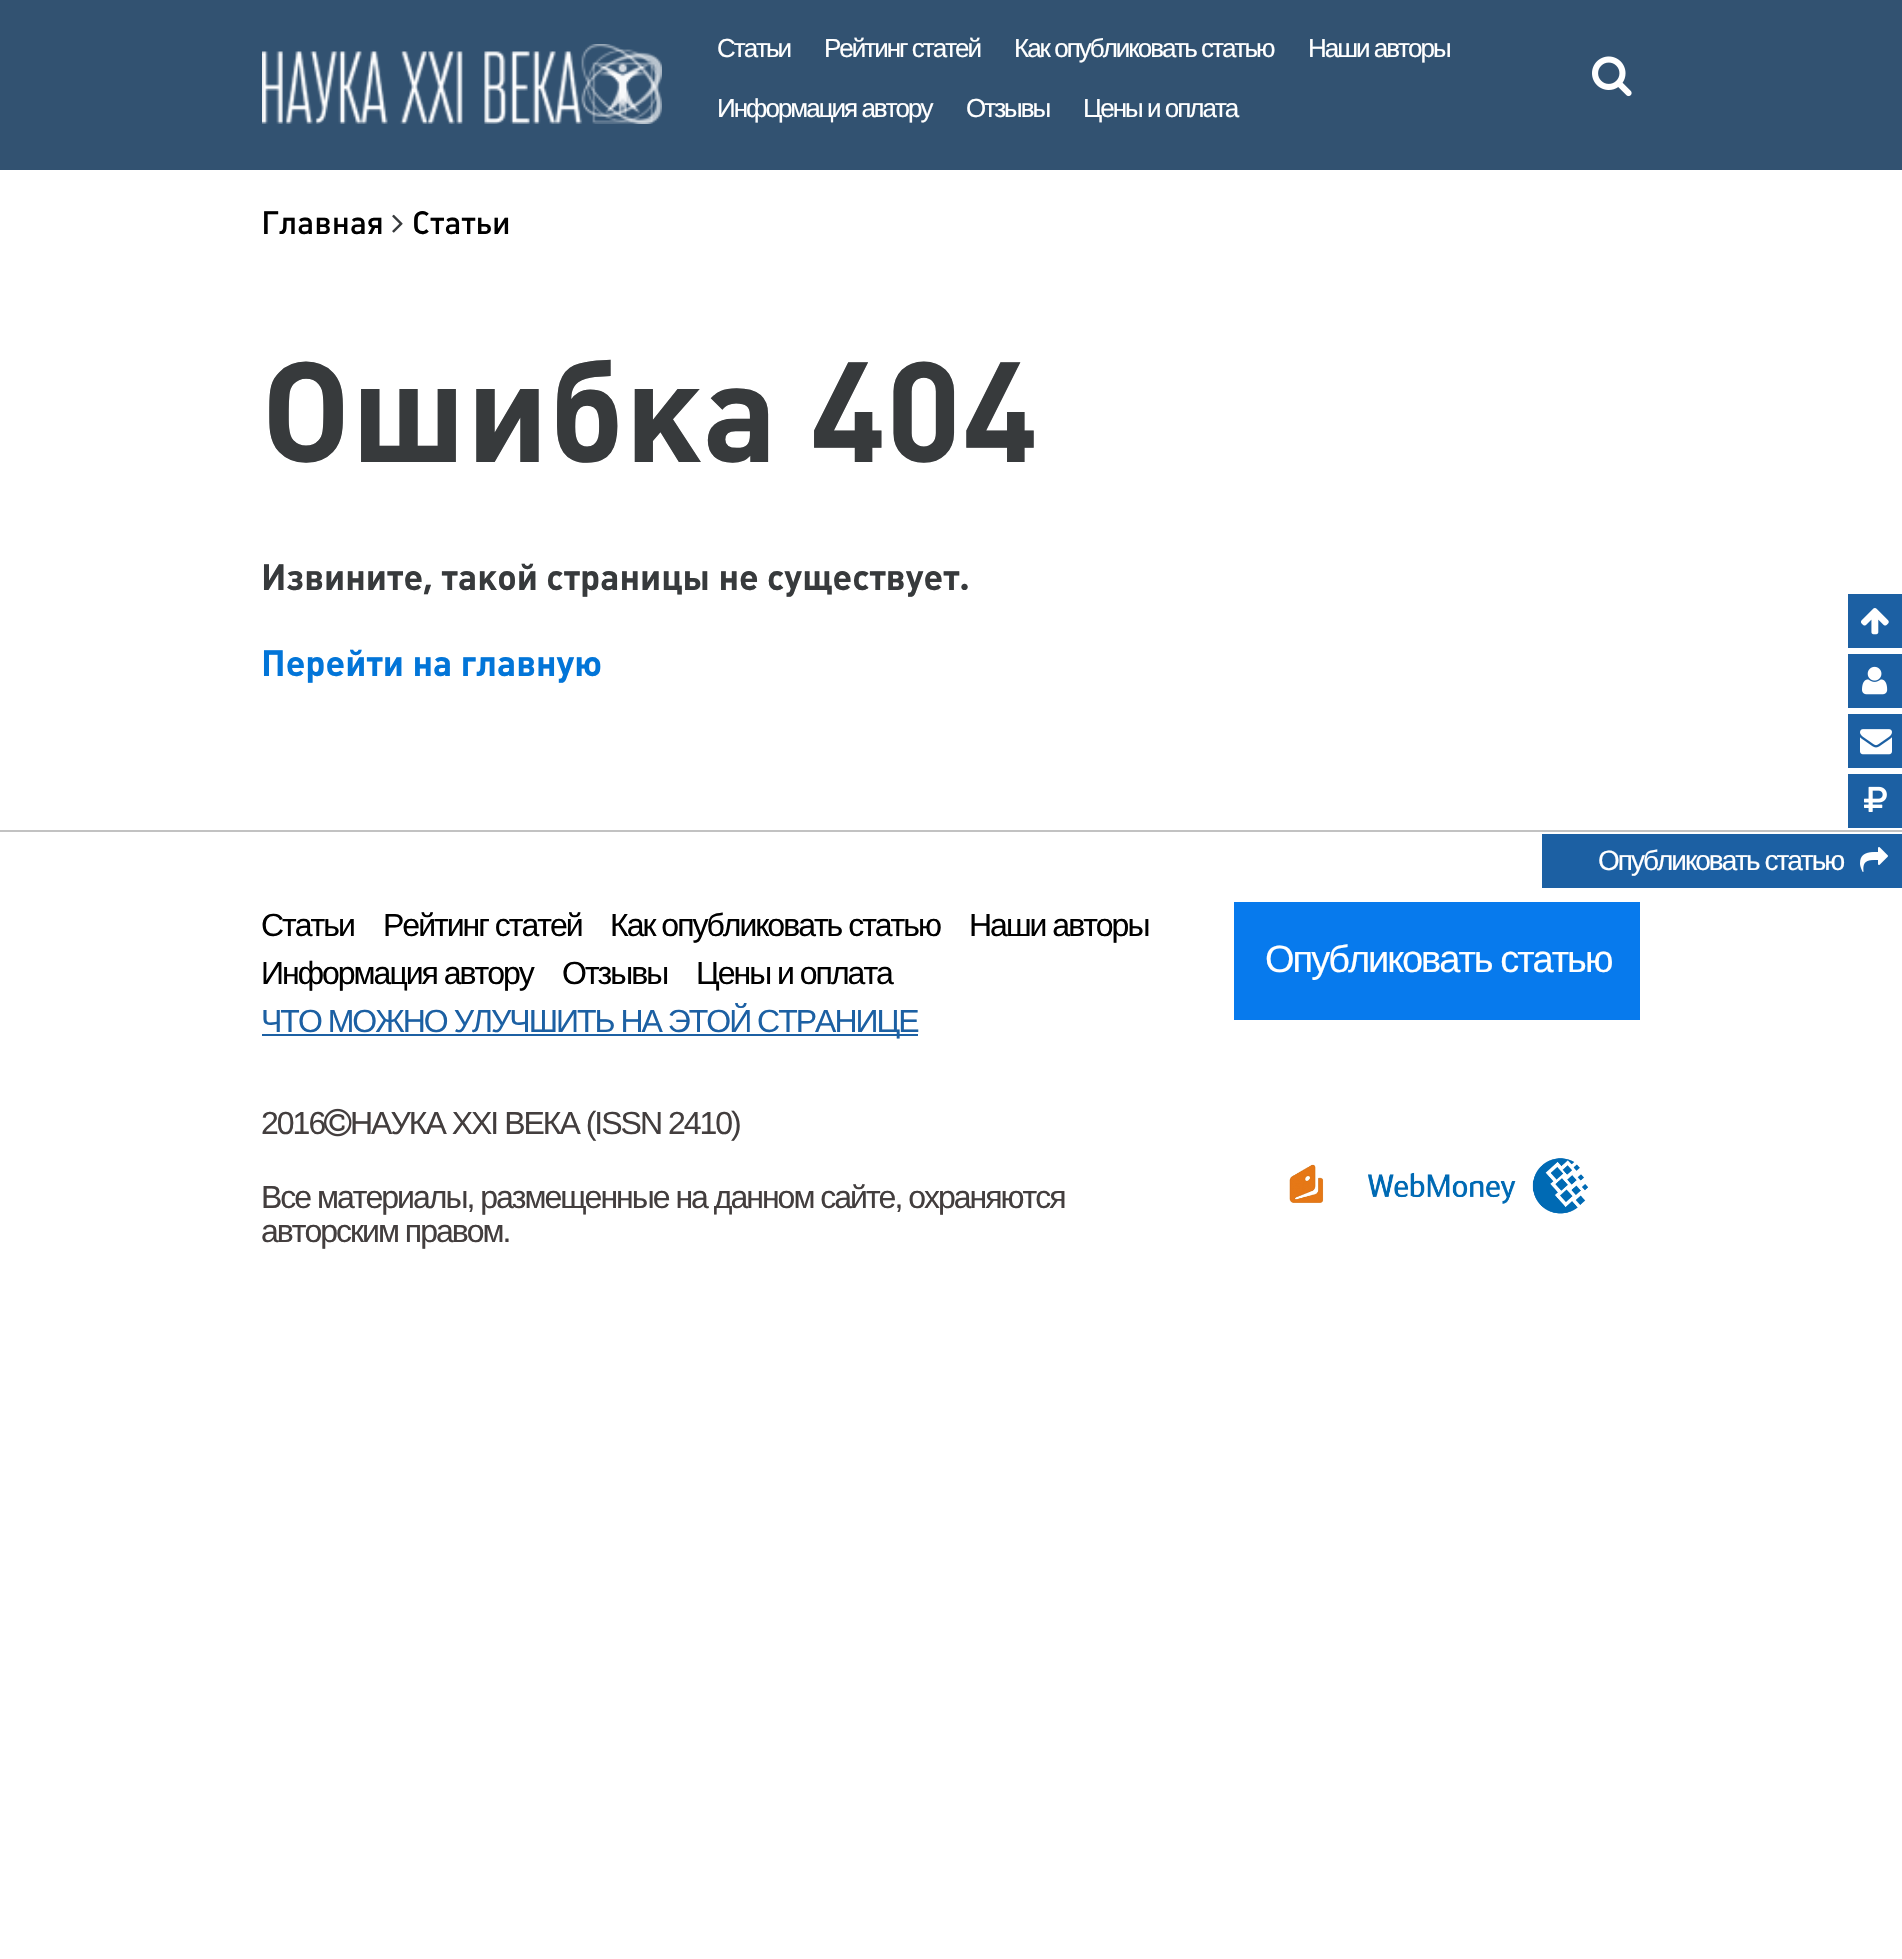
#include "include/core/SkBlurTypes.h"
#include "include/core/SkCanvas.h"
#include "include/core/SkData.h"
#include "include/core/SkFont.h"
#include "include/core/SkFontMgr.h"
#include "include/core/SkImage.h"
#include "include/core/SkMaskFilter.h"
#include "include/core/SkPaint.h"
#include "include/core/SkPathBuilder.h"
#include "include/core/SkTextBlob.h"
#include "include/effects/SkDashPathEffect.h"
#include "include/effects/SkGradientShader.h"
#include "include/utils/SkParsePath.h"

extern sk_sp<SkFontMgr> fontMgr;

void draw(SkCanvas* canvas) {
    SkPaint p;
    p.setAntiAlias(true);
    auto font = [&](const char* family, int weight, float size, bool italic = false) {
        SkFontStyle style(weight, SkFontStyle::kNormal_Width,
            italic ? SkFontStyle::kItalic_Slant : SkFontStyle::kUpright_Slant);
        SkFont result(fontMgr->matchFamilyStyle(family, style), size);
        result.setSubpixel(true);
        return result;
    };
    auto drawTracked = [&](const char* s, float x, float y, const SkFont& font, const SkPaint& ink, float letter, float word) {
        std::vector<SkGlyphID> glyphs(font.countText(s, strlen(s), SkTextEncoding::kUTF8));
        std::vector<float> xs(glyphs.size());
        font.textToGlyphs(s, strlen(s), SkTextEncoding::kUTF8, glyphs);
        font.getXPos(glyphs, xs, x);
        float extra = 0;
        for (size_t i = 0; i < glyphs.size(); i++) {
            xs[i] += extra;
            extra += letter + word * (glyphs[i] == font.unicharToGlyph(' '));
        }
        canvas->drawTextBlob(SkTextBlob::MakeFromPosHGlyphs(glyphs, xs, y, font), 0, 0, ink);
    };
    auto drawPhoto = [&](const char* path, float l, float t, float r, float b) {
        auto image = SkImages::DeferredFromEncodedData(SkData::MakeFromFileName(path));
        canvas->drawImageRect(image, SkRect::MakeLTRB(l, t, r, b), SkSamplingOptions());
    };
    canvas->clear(0xFFFFFFFF);
    p.setColor(0xFF325271);
    canvas->drawRect(SkRect::MakeLTRB(0, 0, 1902, 170), p);
    drawPhoto("media/1.png", 262, 44, 662, 124);
    auto font1 = font("Liberation Sans", 400, 26);
    p.setColor(0xFFFFFFFF);
    {
        const struct { const char* s; float x, y; } items[] = {
            {"Статьи", 717, 57},
            {"Рейтинг статей", 824, 57},
            {"Как опубликовать статью", 1014, 57},
            {"Наши авторы", 1308, 57},
            {"Информация автору", 717, 117},
            {"Отзывы", 966, 117},
            {"Цены и оплата", 1083, 117},
        };
        for (auto [s, x, y] : items) {
            drawTracked(s, x, y, font1, p, -2, 0);
        }
    }
    drawPhoto("media/2.png", 1592, 56, 1632, 97);
    auto font2 = font("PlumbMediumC", 500, 32);
    p.setColor(0xFF000000);
    canvas->drawString("Главная", 261, 234, font2, p);
    drawPhoto("media/3.png", 392, 214, 403, 233);
    canvas->drawString("Статьи", 412, 234, font2, p);
    auto font3 = font("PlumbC", 700, 140);
    p.setColor(0xFF373A3C);
    canvas->drawString("Ошибка 404", 261, 462, font3, p);
    auto font4 = font("PlumbC", 700, 36);
    canvas->drawString("Извините, такой страницы не существует.", 261, 590, font4, p);
    p.setColor(0xFF0275D8);
    canvas->drawString("Перейти на главную", 261, 676, font4, p);
    p.setColor(0xFF1C60A3);
    canvas->drawRect(SkRect::MakeLTRB(1848, 594, 1902, 648), p);
    drawPhoto("media/4.png", 1861, 608, 1889, 635);
    canvas->drawRect(SkRect::MakeLTRB(1848, 654, 1902, 708), p);
    drawPhoto("media/5.png", 1862, 666, 1888, 695);
    canvas->drawRect(SkRect::MakeLTRB(1848, 714, 1902, 768), p);
    drawPhoto("media/6.png", 1860, 729, 1892, 755);
    canvas->drawRect(SkRect::MakeLTRB(1848, 774, 1902, 828), p);
    drawPhoto("media/7.png", 1864, 786, 1887, 812);
    canvas->drawRect(SkRect::MakeLTRB(1542, 834, 1902, 888), p);
    auto font5 = font("Liberation Sans", 400, 28);
    p.setColor(0xFFFFFFFF);
    drawTracked("Опубликовать статью", 1598, 870, font5, p, -2, 0);
    drawPhoto("media/8.png", 1860, 847, 1888, 872);
    p.setColor(0xFFC2C2C2);
    canvas->drawRect(SkRect::MakeLTRB(0, 830, 1902, 832), p);
    auto font6 = font("Liberation Sans", 400, 32);
    p.setColor(0xFF000000);
    {
        const struct { const char* s; float x, y; } items[] = {
            {"Статьи", 261, 936},
            {"Рейтинг статей", 383, 936},
            {"Как опубликовать статью", 610, 936},
            {"Наши авторы", 969, 936},
            {"Информация автору", 261, 984},
            {"Отзывы", 562, 984},
            {"Цены и оплата", 696, 984},
        };
        for (auto [s, x, y] : items) {
            drawTracked(s, x, y, font6, p, -2, 0);
        }
    }
    p.setColor(0xFF1C60A3);
    canvas->drawRect(SkRect::MakeLTRB(262, 1034, 918, 1036), p);
    drawTracked("ЧТО МОЖНО УЛУЧШИТЬ НА ЭТОЙ СТРАНИЦЕ", 261, 1032, font6, p, -2, 0);
    p.setColor(0xFF077AED);
    canvas->drawRect(SkRect::MakeLTRB(1234, 902, 1640, 1020), p);
    auto font7 = font("Liberation Sans", 400, 38);
    p.setColor(0xFFFFFFFF);
    drawTracked("Опубликовать статью", 1265, 972, font7, p, -2, 0);
    p.setColor(0xFF433E3E);
    drawTracked("2016", 261, 1134, font6, p, -2, 0);
    drawPhoto("media/9.png", 324, 1108, 352, 1137);
    {
        const struct { const char* s; float x, y; } items[] = {
            {"НАУКА XXI ВЕКА (ISSN 2410)", 350, 1134},
            {"Все материалы, размещенные на данном сайте, охраняются", 261, 1208},
            {"авторским правом.", 261, 1242},
        };
        for (auto [s, x, y] : items) {
            drawTracked(s, x, y, font6, p, -2, 0);
        }
    }
    drawPhoto("media/10.png", 1289, 1164, 1324, 1203);
    drawPhoto("media/11.png", 1368, 1158, 1588, 1214);
}
